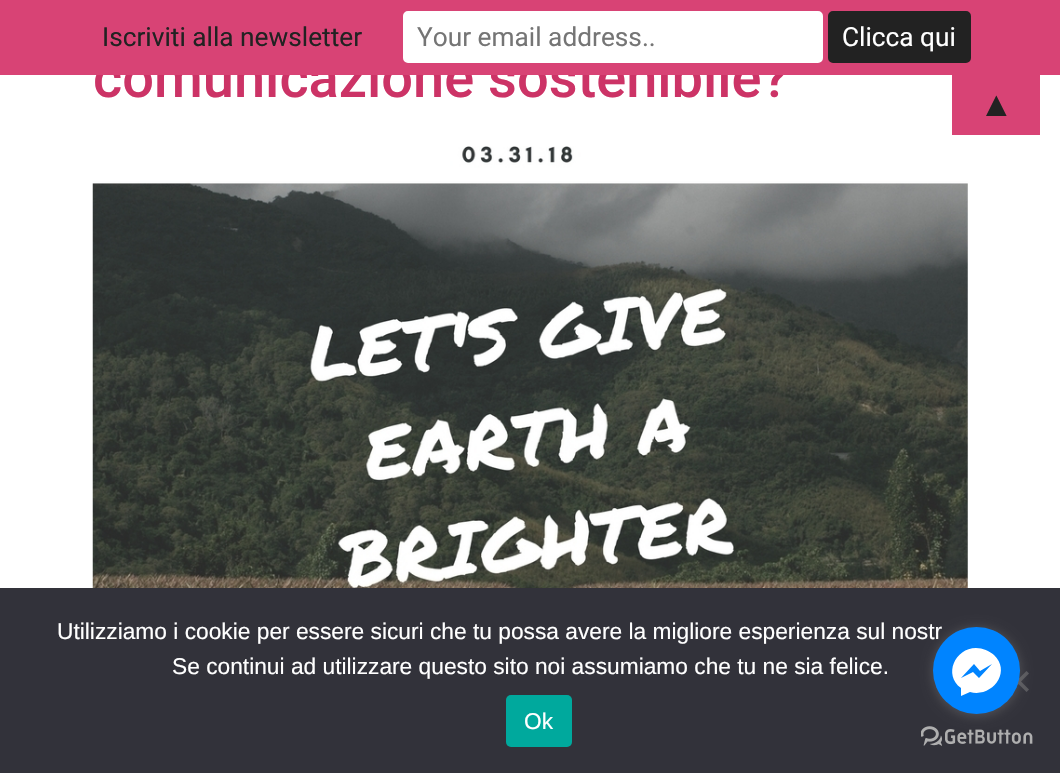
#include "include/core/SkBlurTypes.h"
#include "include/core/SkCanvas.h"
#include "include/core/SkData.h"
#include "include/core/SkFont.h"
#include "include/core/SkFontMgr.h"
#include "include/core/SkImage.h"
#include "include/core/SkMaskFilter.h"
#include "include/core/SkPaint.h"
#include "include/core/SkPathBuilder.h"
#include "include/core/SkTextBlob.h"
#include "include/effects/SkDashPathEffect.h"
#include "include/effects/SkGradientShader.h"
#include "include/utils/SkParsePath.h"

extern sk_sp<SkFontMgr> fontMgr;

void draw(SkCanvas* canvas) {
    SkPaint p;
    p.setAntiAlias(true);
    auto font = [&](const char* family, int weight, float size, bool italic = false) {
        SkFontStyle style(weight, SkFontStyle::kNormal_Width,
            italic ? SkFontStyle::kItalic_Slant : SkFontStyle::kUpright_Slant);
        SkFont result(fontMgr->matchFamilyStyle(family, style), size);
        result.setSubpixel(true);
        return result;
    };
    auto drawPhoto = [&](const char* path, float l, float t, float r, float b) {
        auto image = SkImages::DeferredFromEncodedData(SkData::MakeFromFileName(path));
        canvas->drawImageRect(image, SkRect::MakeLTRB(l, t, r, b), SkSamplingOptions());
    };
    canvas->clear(0xFFFFFFFF);
    auto font1 = font("Roboto", 500, 56);
    p.setColor(0xFFCC3366);
    canvas->drawString("comunicazione sostenibile?", 93, 97, font1, p);
    p.setColor(0xFFD84375);
    canvas->drawRect(SkRect::MakeLTRB(0, 0, 1060, 75), p);
    auto font2 = font("Roboto", 400, 26.25f);
    p.setColor(0xFF222222);
    canvas->drawString("Iscriviti alla newsletter", 102, 46, font2, p);
    p.setColor(0xFFFFFFFF);
    canvas->drawRoundRect(SkRect::MakeLTRB(404, 12, 822, 62), 4, 4, p);
    p.setStyle(SkPaint::kStroke_Style);
    p.setStrokeWidth(2);
    canvas->drawRoundRect(SkRect::MakeLTRB(404, 12, 822, 62), 4, 4, p);
    p.setStyle(SkPaint::kFill_Style);
    p.setColor(0xFF757575);
    canvas->drawString("Your email address..", 417, 46, font2, p);
    p.setColor(0xFF222222);
    canvas->drawRoundRect(SkRect::MakeLTRB(829, 12, 970, 62), 4, 4, p);
    p.setStyle(SkPaint::kStroke_Style);
    canvas->drawRoundRect(SkRect::MakeLTRB(829, 12, 970, 62), 4, 4, p);
    p.setStyle(SkPaint::kFill_Style);
    p.setColor(0xFFFFFFFF);
    canvas->drawString("Clicca qui", 842, 46, font2, p);
    p.setColor(0xFFD84375);
    canvas->drawRect(SkRect::MakeLTRB(952, 75, 1040, 135), p);
    auto font3 = font("Liberation Sans", 400, 35);
    p.setColor(0xFF222222);
    canvas->drawString("▲", 979, 116, font3, p);
    drawPhoto("media/1.png", 92, 146, 968, 588);
    p.setColor(0xFF32323A);
    canvas->drawRect(SkRect::MakeLTRB(0, 588, 1060, 773), p);
    auto font4 = font("Liberation Sans", 400, 22.75f);
    p.setColor(0xFFFFFFFF);
    canvas->drawString("Utilizziamo i cookie per essere sicuri che tu possa avere la migliore esperienza sul nostr", 57, 639, font4, p);
    canvas->drawString("Se continui ad utilizzare questo sito noi assumiamo che tu ne sia felice.", 172, 674, font4, p);
    p.setColor(0xFF59595D);
    canvas->drawPath(SkPathBuilder().moveTo(1026.5f, 671).lineTo(1029, 673.5f).lineTo(1010.5f, 692).lineTo(1008, 689.5f).close().detach(), p);
    canvas->drawPath(SkPathBuilder().moveTo(1008, 673.5f).lineTo(1010.5f, 671).lineTo(1029, 689.5f).lineTo(1026.5f, 692).close().detach(), p);
    p.setColor(0xFF00A99D);
    canvas->drawRoundRect(SkRect::MakeLTRB(506, 695, 572, 747), 5, 5, p);
    p.setColor(0xFFFFFFFF);
    canvas->drawString("Ok", 524, 729, font4, p);
    drawPhoto("media/2.png", 921, 726, 1033, 746);
    p.setColor(0x66888888);
    p.setMaskFilter(SkMaskFilter::MakeBlur(kNormal_SkBlurStyle, 6));
    canvas->drawRoundRect(SkRect::MakeLTRB(933, 628, 1020, 716), 43.5f, 43.5f, p);
    p.setMaskFilter(nullptr);
    p.setColor(0xFF0084FF);
    canvas->drawCircle(976.5f, 670.5f, 43.5f, p);
    p.setColor(0xFFFFFFFF);
    canvas->drawPath(SkPathBuilder().moveTo(976, 648).cubicTo(955, 648, 943, 675, 961, 688).lineTo(961, 696).lineTo(970, 692).cubicTo(992, 698, 1012, 672, 994, 655).cubicTo(989, 651, 983, 648, 976, 648).close().moveTo(979, 678).lineTo(973, 672).lineTo(961, 678).lineTo(974, 664).lineTo(980, 671).lineTo(992, 664).close().detach(), p);
}
